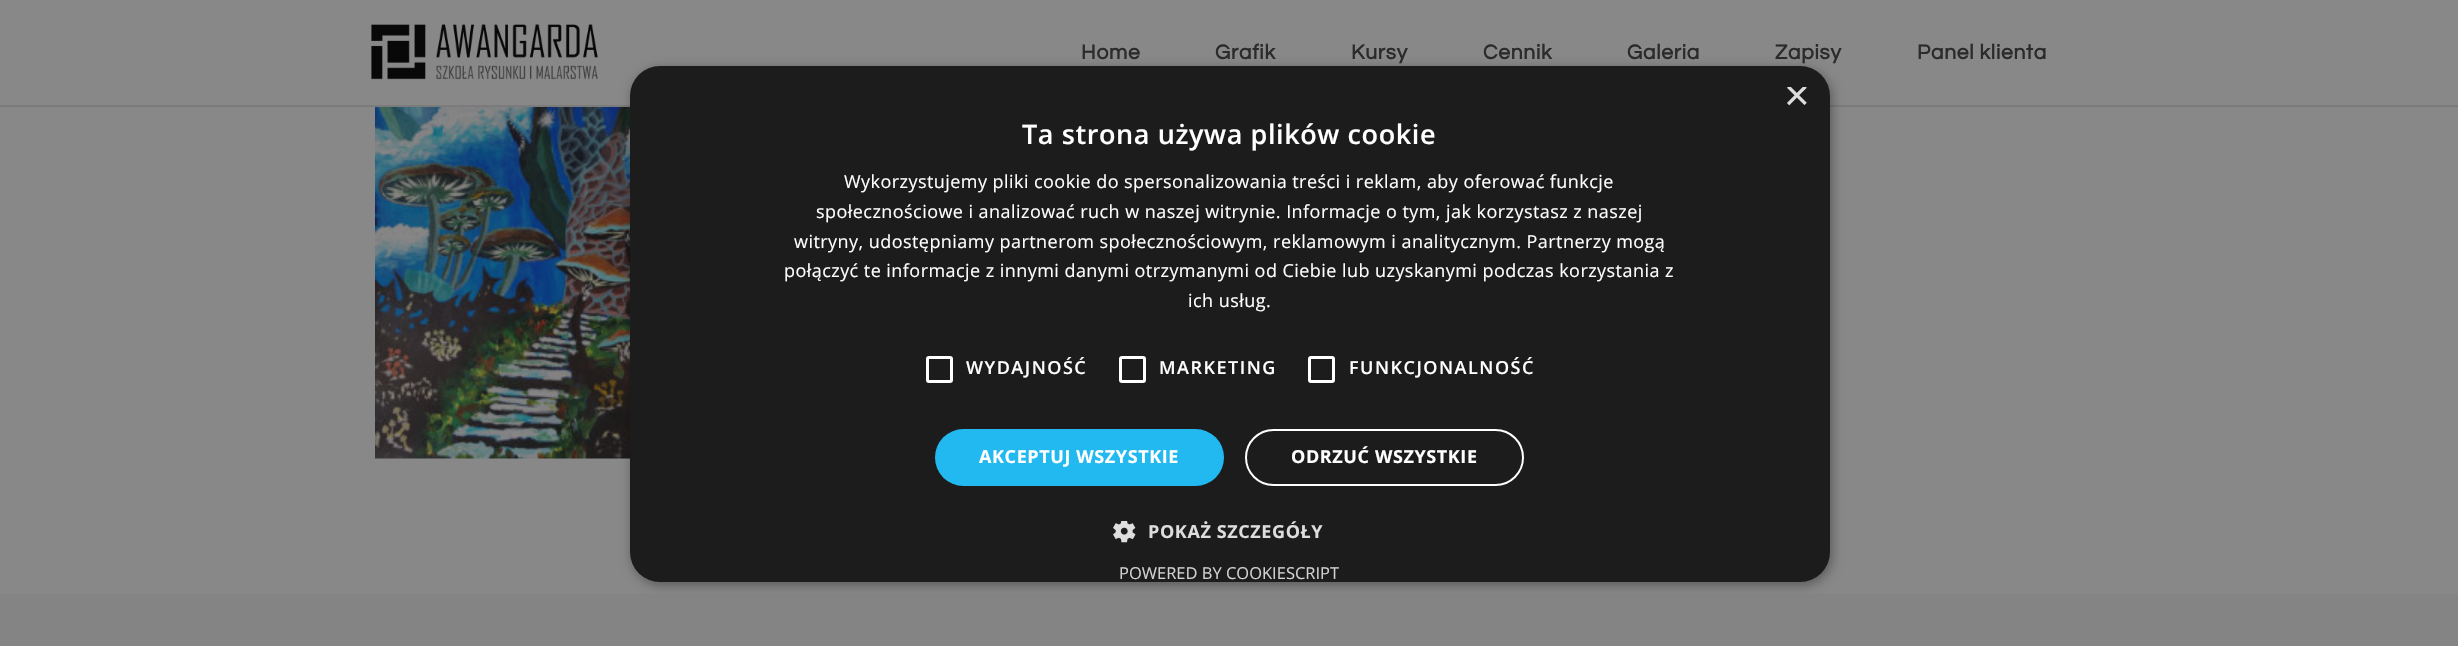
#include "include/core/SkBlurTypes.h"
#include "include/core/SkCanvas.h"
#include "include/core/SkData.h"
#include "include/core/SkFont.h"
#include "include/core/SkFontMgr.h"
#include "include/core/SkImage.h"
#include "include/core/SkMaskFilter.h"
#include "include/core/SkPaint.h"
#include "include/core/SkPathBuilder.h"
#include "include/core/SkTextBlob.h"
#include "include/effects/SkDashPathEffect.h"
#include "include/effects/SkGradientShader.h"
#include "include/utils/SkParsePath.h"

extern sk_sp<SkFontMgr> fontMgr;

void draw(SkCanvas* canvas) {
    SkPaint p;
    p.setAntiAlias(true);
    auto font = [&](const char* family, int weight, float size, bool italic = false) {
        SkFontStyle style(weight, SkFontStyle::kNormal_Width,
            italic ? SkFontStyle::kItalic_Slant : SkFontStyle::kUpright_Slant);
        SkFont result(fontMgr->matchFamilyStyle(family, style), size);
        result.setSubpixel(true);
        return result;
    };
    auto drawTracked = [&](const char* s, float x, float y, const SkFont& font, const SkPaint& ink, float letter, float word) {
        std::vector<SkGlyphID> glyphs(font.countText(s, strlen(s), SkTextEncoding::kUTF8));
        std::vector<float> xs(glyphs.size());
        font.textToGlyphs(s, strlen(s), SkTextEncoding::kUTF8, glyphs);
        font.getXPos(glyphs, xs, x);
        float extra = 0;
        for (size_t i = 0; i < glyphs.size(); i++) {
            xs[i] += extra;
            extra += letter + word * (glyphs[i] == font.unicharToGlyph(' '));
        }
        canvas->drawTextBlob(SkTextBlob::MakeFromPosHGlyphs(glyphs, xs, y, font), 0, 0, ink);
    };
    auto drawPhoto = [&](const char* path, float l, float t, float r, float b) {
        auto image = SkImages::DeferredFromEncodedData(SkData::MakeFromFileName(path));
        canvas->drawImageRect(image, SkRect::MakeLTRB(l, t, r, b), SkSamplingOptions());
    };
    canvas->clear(0xFF888888);
    p.setColor(0xFF7B7B7B);
    canvas->drawRect(SkRect::MakeLTRB(0, 105, 2458, 107), p);
    drawPhoto("media/1.png", 371, 24, 598, 80);
    auto font1 = font("Questrial", 700, 21);
    p.setColor(0xFF2B2B2B);
    {
        const struct { const char* s; float x, y; } items[] = {
            {"Home", 1081, 59},
            {"Grafik", 1215, 59},
            {"Kursy", 1351, 59},
            {"Cennik", 1483, 59},
            {"Galeria", 1627, 59},
            {"Zapisy", 1775, 59},
            {"Panel klienta", 1917, 59},
        };
        for (auto [s, x, y] : items) {
            drawTracked(s, x, y, font1, p, 0.75f, 0);
        }
    }
    drawPhoto("media/2.png", 375, 107, 630, 459);
    p.setColor(0xFF848484);
    canvas->drawRect(SkRect::MakeLTRB(0, 594, 2458, 646), p);
    p.setColor(0x59000000);
    p.setMaskFilter(SkMaskFilter::MakeBlur(kNormal_SkBlurStyle, 6));
    canvas->drawRoundRect(SkRect::MakeLTRB(632, 69, 1832, 585), 30, 30, p);
    p.setMaskFilter(nullptr);
    p.setColor(0xFF1C1C1C);
    canvas->drawRoundRect(SkRect::MakeLTRB(630, 66, 1830, 582), 30, 30, p);
    canvas->save();
    canvas->clipRect(SkRect::MakeLTRB(1785, 87, 1808, 110));
    auto font2 = font("Liberation Sans", 400, 44);
    p.setColor(0xFFDDDDDD);
    canvas->drawString("×", 1784, 110, font2, p);
    canvas->restore();
    auto font3 = font("Open Sans", 600, 27);
    p.setColor(0xFFFFFFFF);
    drawTracked("Ta strona używa plików cookie", 1022, 144, font3, p, 0.6f, 0);
    auto font4 = font("Open Sans", 400, 18);
    {
        const struct { const char* s; float x, y; } items[] = {
            {"Wykorzystujemy pliki cookie do spersonalizowania treści i reklam, aby oferować funkcje", 844, 188},
            {"społecznościowe i analizować ruch w naszej witrynie. Informacje o tym, jak korzystasz z naszej", 816, 218},
            {"witryny, udostępniamy partnerom społecznościowym, reklamowym i analitycznym. Partnerzy mogą", 794, 248},
            {"połączyć te informacje z innymi danymi otrzymanymi od Ciebie lub uzyskanymi podczas korzystania z", 784, 277},
            {"ich usług.", 1188, 307},
        };
        for (auto [s, x, y] : items) {
            drawTracked(s, x, y, font4, p, 0.45f, 0);
        }
    }
    p.setStyle(SkPaint::kStroke_Style);
    p.setStrokeWidth(3);
    canvas->drawRoundRect(SkRect::MakeLTRB(927.5f, 357.5f, 951.5f, 381.5f), 1.5f, 1.5f, p);
    auto font5 = font("Open Sans", 600, 18);
    p.setStyle(SkPaint::kFill_Style);
    drawTracked("WYDAJNOŚĆ", 966, 374, font5, p, 1.5f, 0);
    p.setStyle(SkPaint::kStroke_Style);
    canvas->drawRoundRect(SkRect::MakeLTRB(1120.5f, 357.5f, 1144.5f, 381.5f), 1.5f, 1.5f, p);
    p.setStyle(SkPaint::kFill_Style);
    drawTracked("MARKETING", 1159, 374, font5, p, 1.5f, 0);
    p.setStyle(SkPaint::kStroke_Style);
    canvas->drawRoundRect(SkRect::MakeLTRB(1309.5f, 357.5f, 1333.5f, 381.5f), 1.5f, 1.5f, p);
    p.setStyle(SkPaint::kFill_Style);
    drawTracked("FUNKCJONALNOŚĆ", 1349, 374, font5, p, 1.5f, 0);
    p.setColor(0xFF22B8F0);
    canvas->drawRoundRect(SkRect::MakeLTRB(935, 429, 1224, 486), 28.5f, 28.5f, p);
    auto font6 = font("Open Sans", 700, 18);
    p.setColor(0xFFFFFFFF);
    drawTracked("AKCEPTUJ WSZYSTKIE", 979, 463, font6, p, 0.6f, 0);
    p.setStyle(SkPaint::kStroke_Style);
    p.setStrokeWidth(2);
    canvas->drawRoundRect(SkRect::MakeLTRB(1246, 430, 1523, 485), 27.5f, 27.5f, p);
    p.setStyle(SkPaint::kFill_Style);
    drawTracked("ODRZUĆ WSZYSTKIE", 1291, 463, font6, p, 0.6f, 0);
    drawPhoto("media/3.png", 1113, 521, 1136, 543);
    p.setColor(0xFFDDDDDD);
    drawTracked("POKAŻ SZCZEGÓŁY", 1148, 538, font6, p, 0.6f, 0);
    auto font7 = font("Open Sans", 400, 16.5f);
    p.setColor(0xFFD2D2D2);
    canvas->drawString("POWERED BY COOKIESCRIPT", 1119, 579, font7, p);
}
